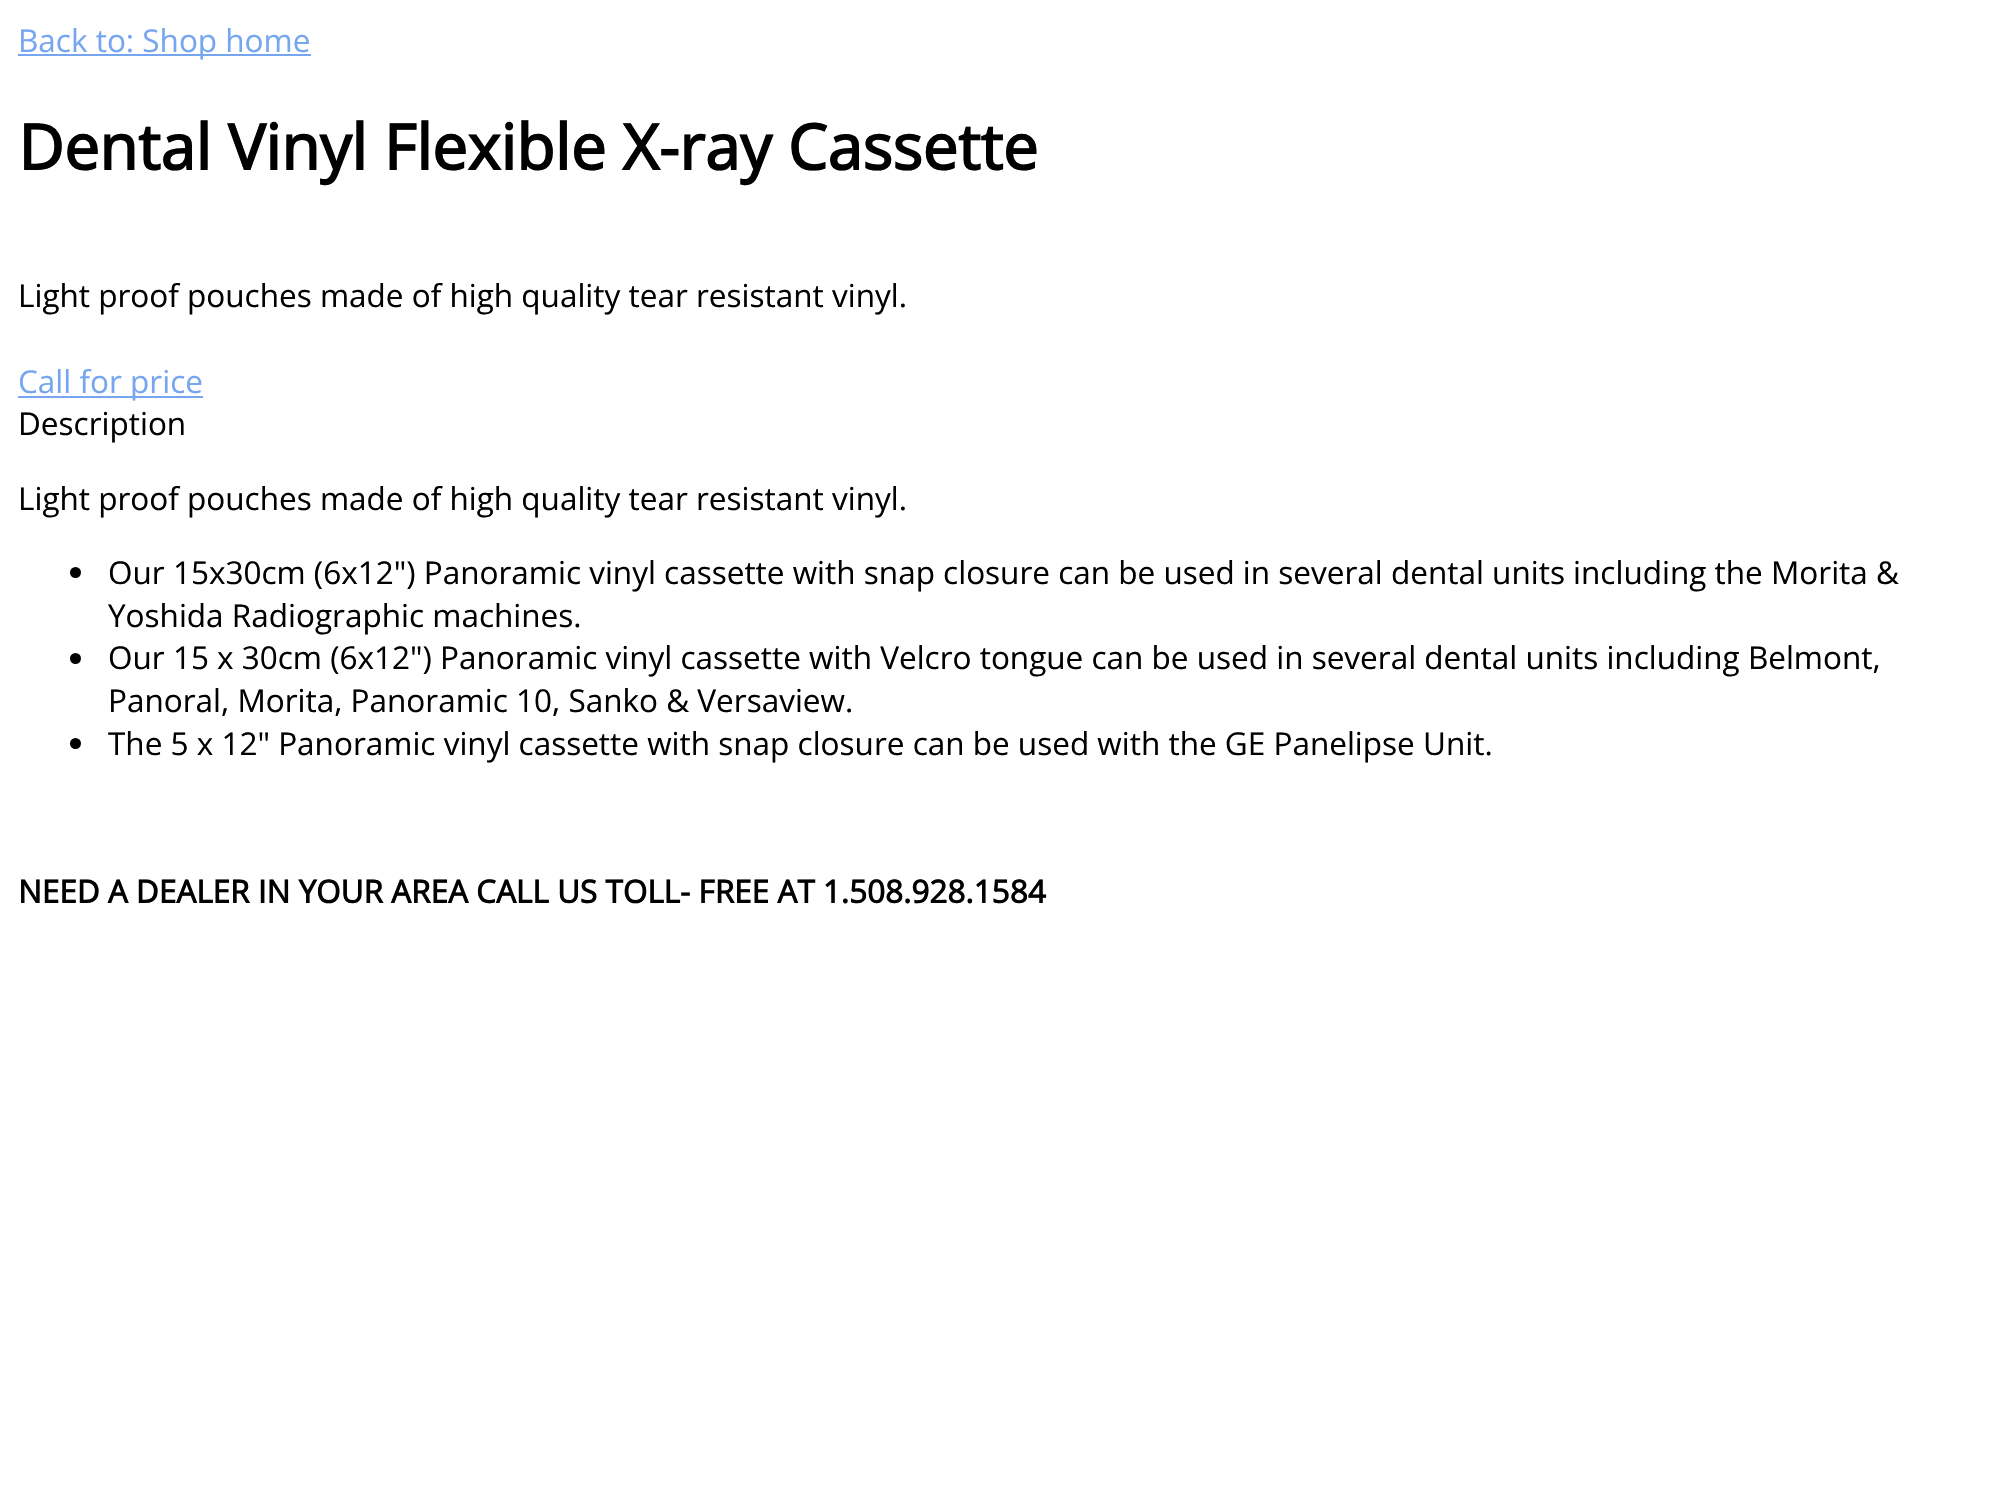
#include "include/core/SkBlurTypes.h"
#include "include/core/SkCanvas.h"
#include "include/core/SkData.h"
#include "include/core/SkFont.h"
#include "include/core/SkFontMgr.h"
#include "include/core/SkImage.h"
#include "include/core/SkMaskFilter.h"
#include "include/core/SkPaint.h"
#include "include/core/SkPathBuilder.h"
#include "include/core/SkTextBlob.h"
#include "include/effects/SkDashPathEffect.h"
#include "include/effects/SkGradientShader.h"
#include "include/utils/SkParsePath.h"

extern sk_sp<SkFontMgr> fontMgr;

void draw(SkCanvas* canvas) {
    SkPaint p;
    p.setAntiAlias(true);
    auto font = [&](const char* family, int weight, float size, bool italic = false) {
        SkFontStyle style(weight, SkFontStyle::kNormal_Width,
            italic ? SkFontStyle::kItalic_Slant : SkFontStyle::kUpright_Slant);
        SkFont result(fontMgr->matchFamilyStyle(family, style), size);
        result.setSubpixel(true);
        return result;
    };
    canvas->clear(0xFFFFFFFF);
    p.setColor(0xFF76A6EF);
    canvas->drawRect(SkRect::MakeLTRB(18, 54, 311, 56), p);
    auto font1 = font("Open Sans", 400, 31.5f);
    canvas->drawString("Back to: Shop home", 18, 52, font1, p);
    auto font2 = font("Open Sans", 700, 63);
    p.setColor(0xFF000000);
    canvas->drawString("Dental Vinyl Flexible X-ray Cassette", 18, 170, font2, p);
    canvas->drawString("Light proof pouches made of high quality tear resistant vinyl.", 18, 307, font1, p);
    p.setColor(0xFF76A6EF);
    canvas->drawRect(SkRect::MakeLTRB(18, 396, 203, 398), p);
    canvas->drawString("Call for price", 18, 393, font1, p);
    p.setColor(0xFF000000);
    canvas->drawString("Description", 18, 435, font1, p);
    canvas->drawString("Light proof pouches made of high quality tear resistant vinyl.", 18, 510, font1, p);
    canvas->drawCircle(75.5f, 572.5f, 5.5f, p);
    canvas->drawString("Our 15x30cm (6x12\") Panoramic vinyl cassette with snap closure can be used in several dental units including the Morita &", 108, 584, font1, p);
    canvas->drawString("Yoshida Radiographic machines.", 108, 627, font1, p);
    canvas->drawCircle(75.5f, 658.5f, 5.5f, p);
    canvas->drawString("Our 15 x 30cm (6x12\") Panoramic vinyl cassette with Velcro tongue can be used in several dental units including Belmont,", 108, 669, font1, p);
    canvas->drawString("Panoral, Morita, Panoramic 10, Sanko & Versaview.", 108, 712, font1, p);
    canvas->drawCircle(75.5f, 743.5f, 5.5f, p);
    canvas->drawString("The 5 x 12\" Panoramic vinyl cassette with snap closure can be used with the GE Panelipse Unit.", 108, 755, font1, p);
    auto font3 = font("Open Sans", 700, 31.5f);
    canvas->drawString("NEED A DEALER IN YOUR AREA CALL US TOLL- FREE AT 1.508.928.1584", 18, 903, font3, p);
}
